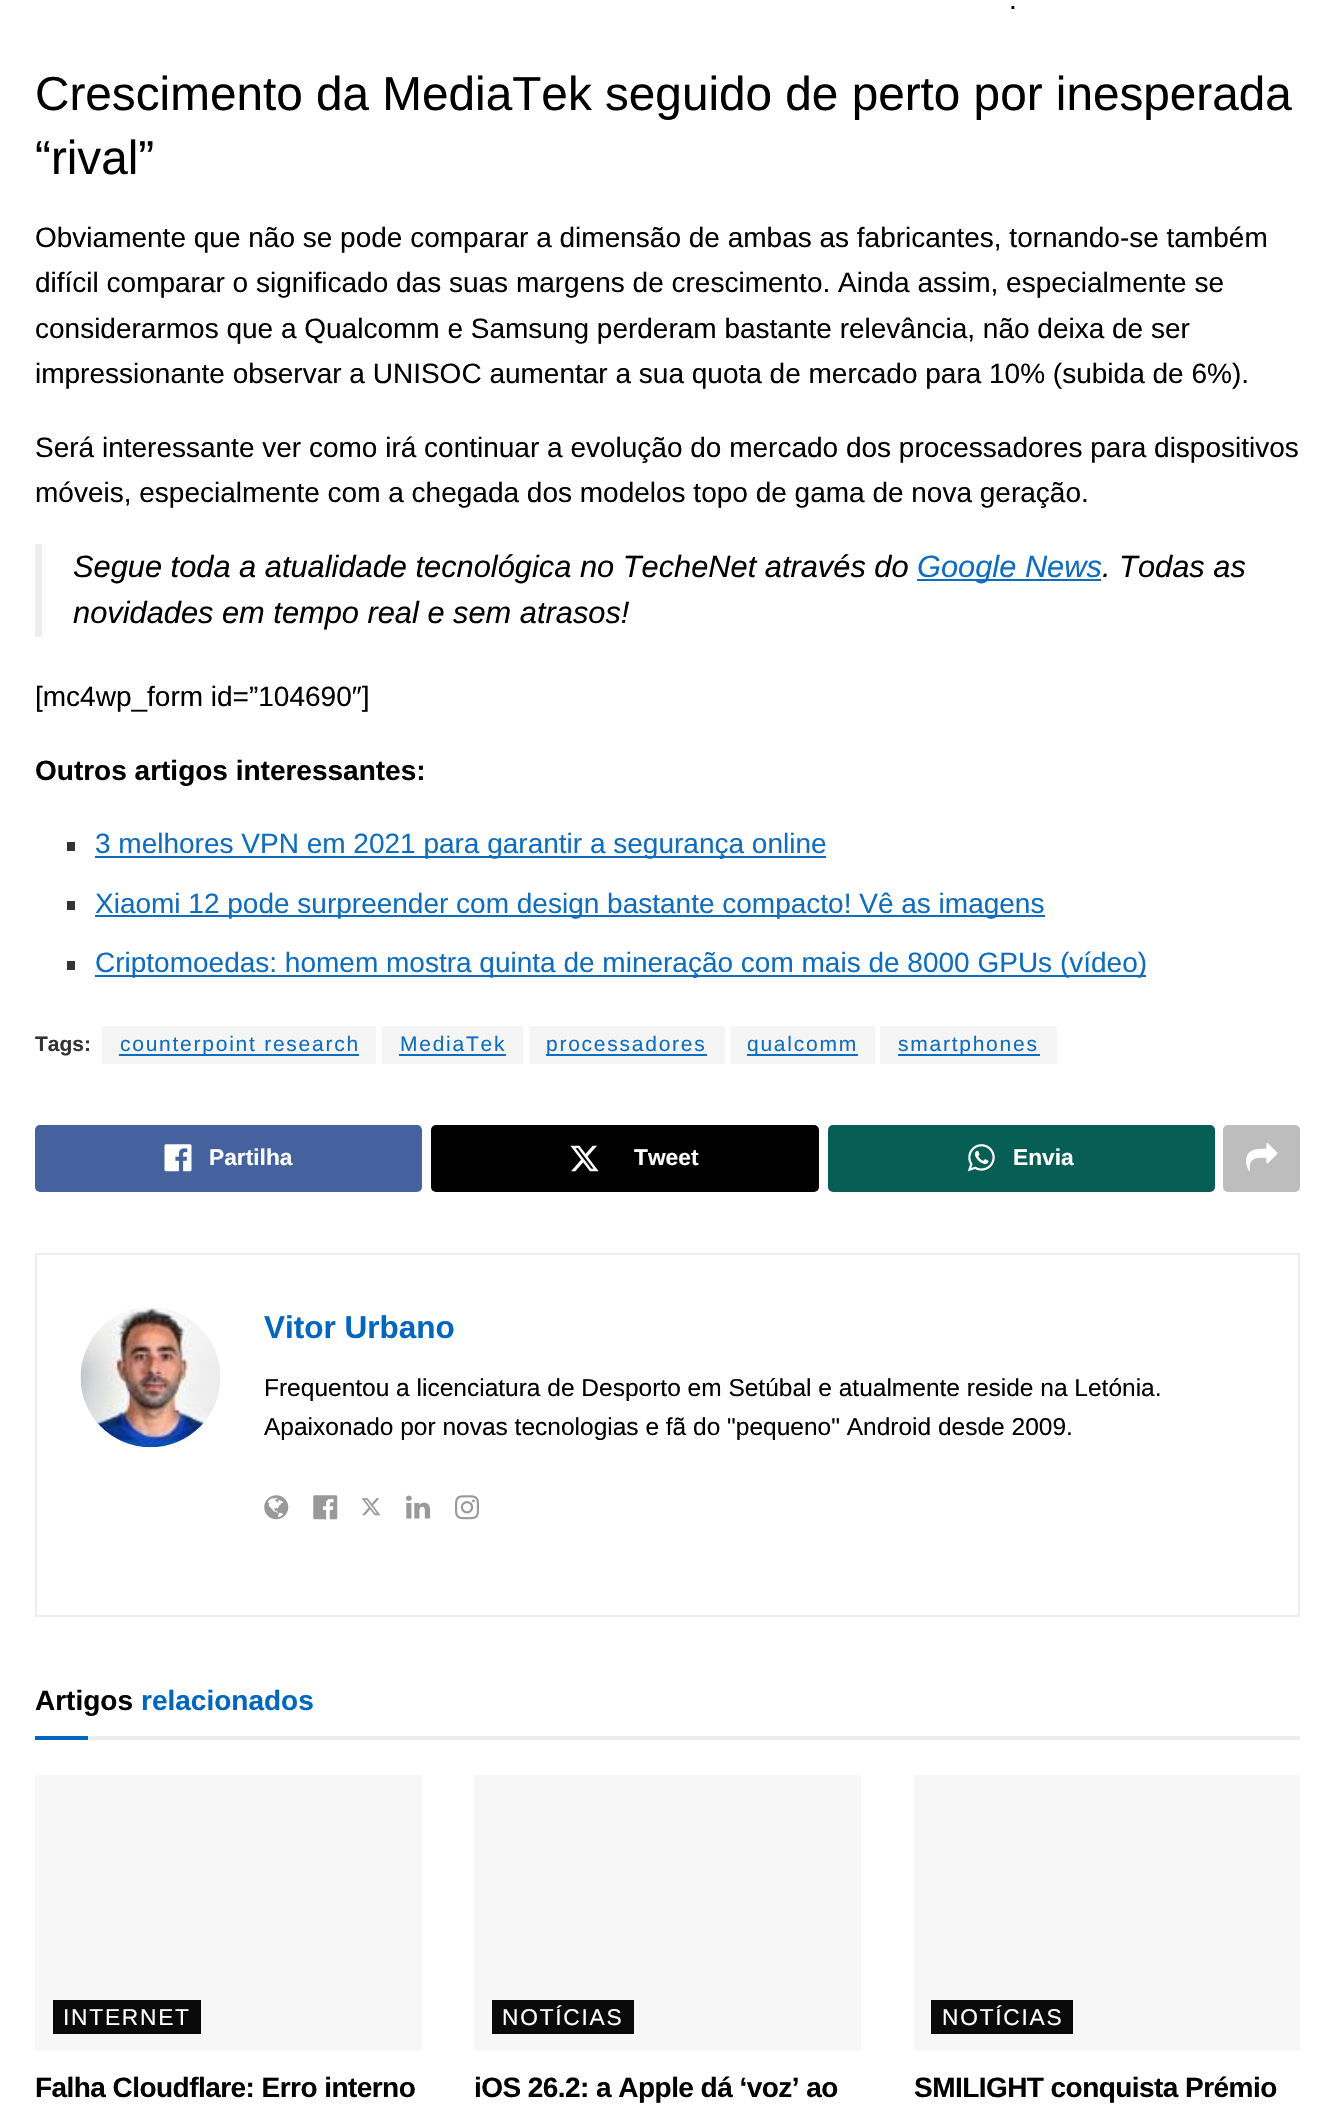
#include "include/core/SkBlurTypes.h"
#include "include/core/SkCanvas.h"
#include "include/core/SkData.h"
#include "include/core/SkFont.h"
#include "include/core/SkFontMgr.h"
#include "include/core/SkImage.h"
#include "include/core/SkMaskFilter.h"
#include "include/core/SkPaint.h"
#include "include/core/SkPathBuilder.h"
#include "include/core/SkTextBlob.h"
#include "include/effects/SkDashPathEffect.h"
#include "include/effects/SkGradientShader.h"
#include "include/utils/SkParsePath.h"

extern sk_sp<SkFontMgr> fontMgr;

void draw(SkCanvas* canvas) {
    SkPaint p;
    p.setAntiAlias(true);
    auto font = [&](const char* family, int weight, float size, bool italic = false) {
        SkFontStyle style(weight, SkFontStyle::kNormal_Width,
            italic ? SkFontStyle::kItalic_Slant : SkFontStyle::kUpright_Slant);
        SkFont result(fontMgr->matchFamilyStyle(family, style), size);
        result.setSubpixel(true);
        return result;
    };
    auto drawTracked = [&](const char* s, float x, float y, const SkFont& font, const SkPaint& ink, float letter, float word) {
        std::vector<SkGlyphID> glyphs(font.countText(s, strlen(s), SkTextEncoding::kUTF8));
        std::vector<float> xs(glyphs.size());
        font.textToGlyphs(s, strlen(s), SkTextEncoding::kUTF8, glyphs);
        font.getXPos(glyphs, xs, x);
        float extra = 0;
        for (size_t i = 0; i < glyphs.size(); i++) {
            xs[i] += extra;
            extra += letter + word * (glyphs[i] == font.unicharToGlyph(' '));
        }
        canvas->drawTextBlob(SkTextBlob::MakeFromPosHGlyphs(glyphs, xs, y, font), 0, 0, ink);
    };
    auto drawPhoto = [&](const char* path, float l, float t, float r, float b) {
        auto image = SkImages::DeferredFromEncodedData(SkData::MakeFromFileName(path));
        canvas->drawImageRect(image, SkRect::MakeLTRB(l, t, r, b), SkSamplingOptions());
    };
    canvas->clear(0xFFFFFFFF);
    auto font1 = font("Liberation Sans", 400, 28);
    p.setColor(0xFF000000);
    canvas->drawString(".", 1009, 9, font1, p);
    auto font2 = font("Liberation Sans", 400, 47.7f);
    canvas->drawString("Crescimento da MediaTek seguido de perto por inesperada", 35, 110, font2, p);
    canvas->drawString("“rival”", 35, 174, font2, p);
    {
        const struct { const char* s; float x, y; } items[] = {
            {"Obviamente que não se pode comparar a dimensão de ambas as fabricantes, tornando-se também", 35, 247},
            {"difícil comparar o significado das suas margens de crescimento. Ainda assim, especialmente se", 35, 292},
            {"considerarmos que a Qualcomm e Samsung perderam bastante relevância, não deixa de ser", 35, 338},
            {"impressionante observar a UNISOC aumentar a sua quota de mercado para 10% (subida de 6%).", 35, 383},
            {"Será interessante ver como irá continuar a evolução do mercado dos processadores para dispositivos", 35, 457},
            {"móveis, especialmente com a chegada dos modelos topo de gama de nova geração.", 35, 502},
        };
        for (auto [s, x, y] : items) {
            canvas->drawString(s, x, y, font1, p);
        }
    }
    p.setColor(0xFFEEEEEE);
    canvas->drawRect(SkRect::MakeLTRB(35, 544, 42, 637), p);
    auto font3 = font("Liberation Sans", 400, 30.8f, true);
    p.setColor(0xFF000000);
    canvas->drawString("Segue toda a atualidade tecnológica no TecheNet através do", 73, 577, font3, p);
    p.setColor(0xFF0F6DBF);
    canvas->drawRect(SkRect::MakeLTRB(917, 579, 1101, 581), p);
    canvas->drawString("Google News", 917, 577, font3, p);
    p.setColor(0xFF000000);
    canvas->drawString(". Todas as", 1102, 577, font3, p);
    canvas->drawString("novidades em tempo real e sem atrasos!", 73, 623, font3, p);
    canvas->drawString("[mc4wp_form id=”104690″]", 35, 706, font1, p);
    auto font4 = font("Liberation Sans", 700, 28);
    canvas->drawString("Outros artigos interessantes:", 35, 780, font4, p);
    p.setColor(0xFF333333);
    canvas->drawRect(SkRect::MakeLTRB(67, 842, 75, 851), p);
    p.setColor(0xFF0F6DBF);
    canvas->drawRect(SkRect::MakeLTRB(95, 856, 826, 858), p);
    canvas->drawString("3 melhores VPN em 2021 para garantir a segurança online", 95, 853, font1, p);
    p.setColor(0xFF333333);
    canvas->drawRect(SkRect::MakeLTRB(67, 901, 75, 910), p);
    p.setColor(0xFF0F6DBF);
    canvas->drawRect(SkRect::MakeLTRB(95, 915, 1045, 917), p);
    canvas->drawString("Xiaomi 12 pode surpreender com design bastante compacto! Vê as imagens", 95, 913, font1, p);
    p.setColor(0xFF333333);
    canvas->drawRect(SkRect::MakeLTRB(67, 961, 75, 970), p);
    p.setColor(0xFF0F6DBF);
    canvas->drawRect(SkRect::MakeLTRB(95, 975, 1146, 977), p);
    canvas->drawString("Criptomoedas: homem mostra quinta de mineração com mais de 8000 GPUs (vídeo)", 95, 972, font1, p);
    auto font5 = font("Liberation Sans", 700, 21);
    p.setColor(0xFF333333);
    canvas->drawString("Tags:", 35, 1051, font5, p);
    p.setColor(0xFFF5F5F5);
    canvas->drawRect(SkRect::MakeLTRB(102, 1026, 376, 1064), p);
    p.setColor(0xFF0F6DBF);
    canvas->drawRect(SkRect::MakeLTRB(119, 1054, 359, 1056), p);
    auto font6 = font("Liberation Sans", 400, 21);
    drawTracked("counterpoint research", 120, 1051, font6, p, 1.75f, 0);
    p.setColor(0xFFF5F5F5);
    canvas->drawRect(SkRect::MakeLTRB(382, 1026, 523, 1064), p);
    p.setColor(0xFF0F6DBF);
    drawTracked("MediaTek", 400, 1051, font6, p, 1.75f, 0);
    {
        const struct { float l, t, r, b; SkColor color; } items[] = {
            {399, 1054, 506, 1056, 0xFF0F6DBF},
            {529, 1026, 725, 1064, 0xFFF5F5F5},
            {546, 1054, 707, 1056, 0xFF0F6DBF},
        };
        for (auto [l, t, r, b, color] : items) {
            p.setColor(color);
            canvas->drawRect(SkRect::MakeLTRB(l, t, r, b), p);
        }
    }
    drawTracked("processadores", 546, 1051, font6, p, 1.75f, 0);
    p.setColor(0xFFF5F5F5);
    canvas->drawRect(SkRect::MakeLTRB(730, 1026, 875, 1064), p);
    p.setColor(0xFF0F6DBF);
    canvas->drawRect(SkRect::MakeLTRB(747, 1054, 858, 1056), p);
    drawTracked("qualcomm", 747, 1051, font6, p, 1.75f, 0);
    p.setColor(0xFFF5F5F5);
    canvas->drawRect(SkRect::MakeLTRB(880, 1026, 1057, 1064), p);
    p.setColor(0xFF0F6DBF);
    canvas->drawRect(SkRect::MakeLTRB(898, 1054, 1040, 1056), p);
    drawTracked("smartphones", 898, 1051, font6, p, 1.75f, 0);
    p.setColor(0xFF45629F);
    canvas->drawRoundRect(SkRect::MakeLTRB(35, 1125, 422, 1192), 5, 5, p);
    drawPhoto("media/1.png", 164, 1144, 192, 1172);
    auto font7 = font("Liberation Sans", 700, 22.75f);
    p.setColor(0xFFFFFFFF);
    canvas->drawString("Partilha", 209, 1165, font7, p);
    p.setColor(0xFF000000);
    canvas->drawRoundRect(SkRect::MakeLTRB(431, 1125, 819, 1192), 5, 5, p);
    drawPhoto("media/2.png", 570, 1145, 599, 1172);
    p.setColor(0xFFFFFFFF);
    canvas->drawString("Tweet", 634, 1165, font7, p);
    p.setColor(0xFF075E54);
    canvas->drawRoundRect(SkRect::MakeLTRB(828, 1125, 1215, 1192), 5, 5, p);
    drawPhoto("media/3.png", 967, 1144, 995, 1172);
    p.setColor(0xFFFFFFFF);
    canvas->drawString("Envia", 1013, 1165, font7, p);
    p.setColor(0xFFBDBDBD);
    canvas->drawRoundRect(SkRect::MakeLTRB(1223, 1125, 1300, 1192), 5, 5, p);
    drawPhoto("media/4.png", 1246, 1143, 1278, 1172);
    p.setStyle(SkPaint::kStroke_Style);
    p.setStrokeWidth(2);
    p.setColor(0xFFEEEEEE);
    canvas->drawRect(SkRect::MakeLTRB(36, 1254, 1299, 1616), p);
    drawPhoto("media/5.png", 80, 1307, 221, 1448);
    auto font8 = font("Liberation Sans", 700, 31.5f);
    p.setStyle(SkPaint::kFill_Style);
    p.setColor(0xFF0066BF);
    canvas->drawString("Vitor Urbano", 264, 1338, font8, p);
    auto font9 = font("Liberation Sans", 400, 24.5f);
    p.setColor(0xFF000000);
    canvas->drawString("Frequentou a licenciatura de Desporto em Setúbal e atualmente reside na Letónia.", 264, 1396, font9, p);
    canvas->drawString("Apaixonado por novas tecnologias e fã do \"pequeno\" Android desde 2009.", 264, 1435, font9, p);
    drawPhoto("media/6.png", 264, 1495, 289, 1520);
    drawPhoto("media/7.png", 313, 1495, 338, 1520);
    drawPhoto("media/8.png", 361, 1498, 381, 1516);
    drawPhoto("media/9.png", 406, 1495, 430, 1519);
    drawPhoto("media/10.png", 455, 1495, 479, 1520);
    p.setColor(0xFFEEEEEE);
    canvas->drawRect(SkRect::MakeLTRB(88, 1736, 1300, 1740), p);
    p.setColor(0xFF000000);
    canvas->drawString("Artigos", 35, 1710, font4, p);
    p.setColor(0xFF0066BF);
    canvas->drawString("relacionados", 141, 1710, font4, p);
    {
        const struct { float l, t, r, b; SkColor color; } items[] = {
            {35, 1736, 88, 1740, 0xFF0066BF},
            {35, 1775, 422, 2051, 0xFFF7F7F7},
            {53, 2000, 201, 2034, 0xFF0A0A0A},
        };
        for (auto [l, t, r, b, color] : items) {
            p.setColor(color);
            canvas->drawRect(SkRect::MakeLTRB(l, t, r, b), p);
        }
    }
    auto font10 = font("Liberation Sans", 400, 22.75f);
    p.setColor(0xFFFFFFFF);
    drawTracked("INTERNET", 63, 2025, font10, p, 1.75f, 0);
    p.setColor(0xFF000000);
    drawTracked("Falha Cloudflare: Erro interno", 35, 2097, font4, p, -0.55f, 0);
    p.setColor(0xFFF7F7F7);
    canvas->drawRect(SkRect::MakeLTRB(474, 1775, 861, 2051), p);
    p.setColor(0xFF0A0A0A);
    canvas->drawRect(SkRect::MakeLTRB(492, 2000, 634, 2034), p);
    p.setColor(0xFFFFFFFF);
    drawTracked("NOTÍCIAS", 502, 2025, font10, p, 1.75f, 0);
    p.setColor(0xFF000000);
    drawTracked("iOS 26.2: a Apple dá ‘voz’ ao", 474, 2097, font4, p, -0.55f, 0);
    p.setColor(0xFFF7F7F7);
    canvas->drawRect(SkRect::MakeLTRB(914, 1775, 1300, 2051), p);
    p.setColor(0xFF0A0A0A);
    canvas->drawRect(SkRect::MakeLTRB(931, 2000, 1073, 2034), p);
    p.setColor(0xFFFFFFFF);
    drawTracked("NOTÍCIAS", 942, 2025, font10, p, 1.75f, 0);
    p.setColor(0xFF000000);
    drawTracked("SMILIGHT conquista Prémio", 914, 2097, font4, p, -0.55f, 0);
}
